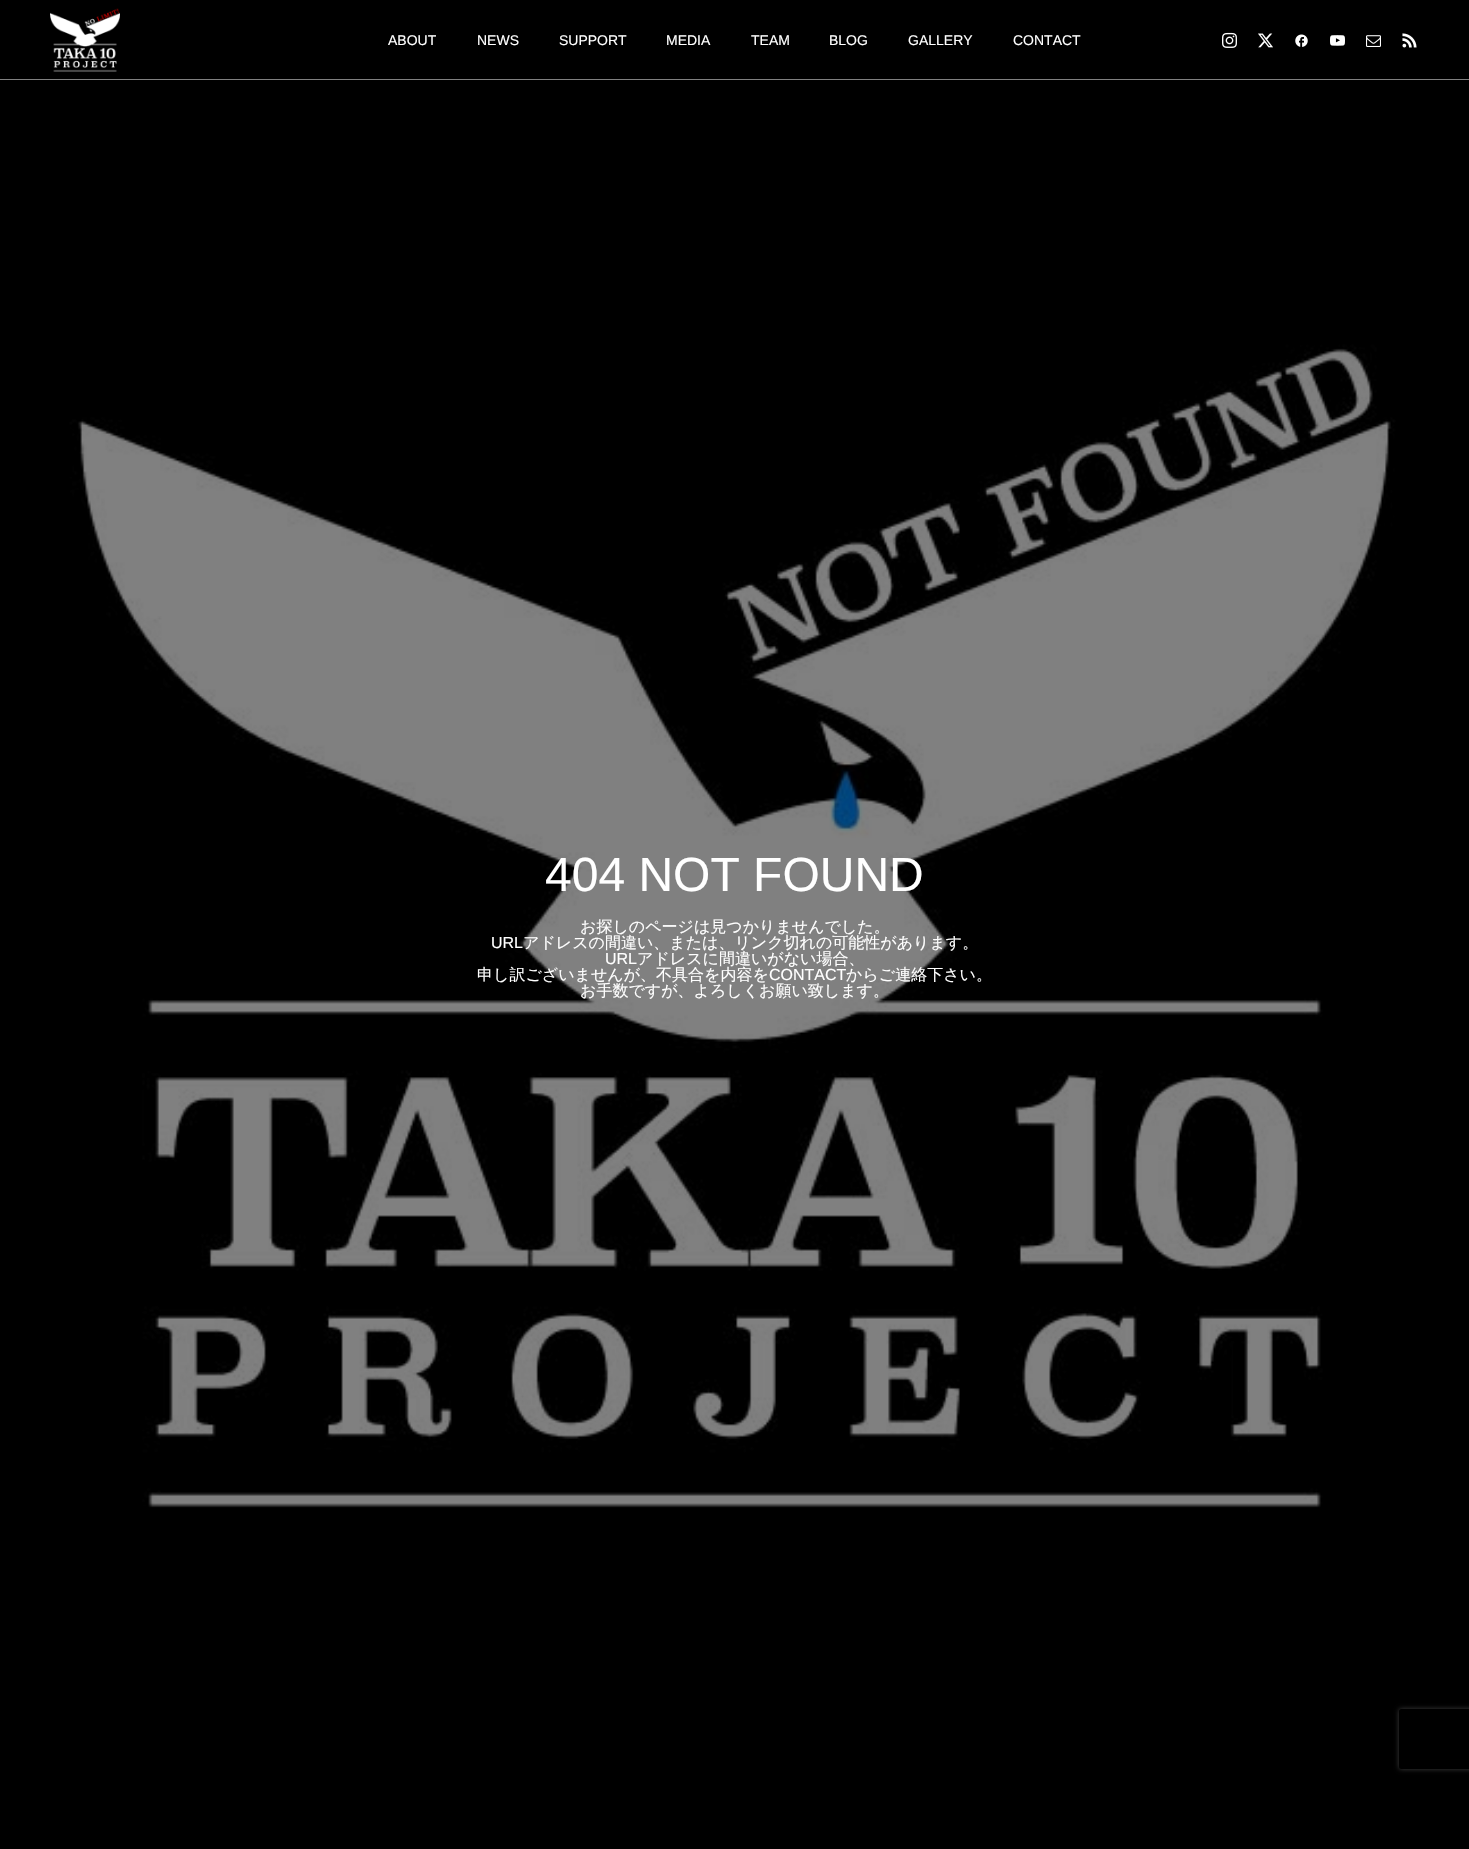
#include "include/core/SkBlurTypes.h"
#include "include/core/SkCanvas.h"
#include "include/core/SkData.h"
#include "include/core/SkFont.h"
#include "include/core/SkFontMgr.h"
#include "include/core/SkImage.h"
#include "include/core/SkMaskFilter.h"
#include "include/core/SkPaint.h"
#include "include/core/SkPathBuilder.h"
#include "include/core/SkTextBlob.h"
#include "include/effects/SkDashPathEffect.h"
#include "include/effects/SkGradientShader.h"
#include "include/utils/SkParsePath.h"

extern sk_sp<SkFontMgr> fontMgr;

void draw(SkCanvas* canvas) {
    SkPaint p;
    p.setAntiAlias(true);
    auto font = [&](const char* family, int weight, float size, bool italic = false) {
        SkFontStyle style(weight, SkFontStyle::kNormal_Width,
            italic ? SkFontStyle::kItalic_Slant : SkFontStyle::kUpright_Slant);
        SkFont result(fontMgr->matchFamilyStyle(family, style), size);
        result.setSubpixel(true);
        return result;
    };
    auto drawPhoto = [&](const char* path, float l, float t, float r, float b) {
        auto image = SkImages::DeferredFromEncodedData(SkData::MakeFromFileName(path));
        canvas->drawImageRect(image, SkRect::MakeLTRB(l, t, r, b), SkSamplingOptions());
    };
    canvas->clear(0xFFFFFFFF);
    drawPhoto("media/8.png", 0, 0, 1469, 1849);
    p.setColor(0xFF808080);
    canvas->drawRect(SkRect::MakeLTRB(0, 79, 1469, 80), p);
    drawPhoto("media/1.png", 50, 8, 120, 72);
    auto font1 = font("Liberation Sans", 400, 14);
    p.setColor(0xFFFFFFFF);
    {
        const struct { const char* s; float x, y; } items[] = {
            {"ABOUT", 388, 45},
            {"NEWS", 477, 45},
            {"SUPPORT", 559, 45},
            {"MEDIA", 666, 45},
            {"TEAM", 751, 45},
            {"BLOG", 829, 45},
            {"GALLERY", 908, 45},
            {"CONTACT", 1013, 45},
        };
        for (auto [s, x, y] : items) {
            canvas->drawString(s, x, y, font1, p);
        }
    }
    drawPhoto("media/2.png", 1222, 32, 1237, 48);
    drawPhoto("media/3.png", 1258, 33, 1273, 48);
    drawPhoto("media/4.png", 1295, 34, 1308, 47);
    drawPhoto("media/5.png", 1330, 35, 1345, 46);
    drawPhoto("media/6.png", 1366, 35, 1381, 47);
    drawPhoto("media/7.png", 1402, 33, 1417, 48);
    auto font2 = font("Liberation Sans", 400, 48);
    canvas->drawString("404 NOT FOUND", 545, 891, font2, p);
    auto font3 = font("WenQuanYi Zen Hei", 500, 16);
    canvas->drawString("お探しのページは見つかりませんでした。", 580, 932, font3, p);
    auto font4 = font("Liberation Sans", 400, 16);
    canvas->drawString("URL", 491, 948, font4, p);
    canvas->drawString("アドレスの間違い、または、リンク切れの可能性があります。", 523, 948, font3, p);
    canvas->drawString("URL", 605, 964, font4, p);
    canvas->drawString("アドレスに間違いがない場合、", 637, 964, font3, p);
    canvas->drawString("申し訳ございませんが、不具合を内容を", 477, 980, font3, p);
    canvas->drawString("CONTACT", 769, 980, font4, p);
    canvas->drawString("からご連絡下さい。", 846, 980, font3, p);
    canvas->drawString("お手数ですが、よろしくお願い致します。", 580, 996, font3, p);
    canvas->save();
    canvas->clipPath(SkPathBuilder(SkPathFillType::kEvenOdd).moveTo(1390, 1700).lineTo(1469, 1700).lineTo(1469, 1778).lineTo(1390, 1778).close().moveTo(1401, 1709).lineTo(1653, 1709).cubicTo(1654, 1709, 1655, 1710, 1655, 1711).lineTo(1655, 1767).cubicTo(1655, 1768, 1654, 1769, 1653, 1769).lineTo(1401, 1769).cubicTo(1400, 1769, 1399, 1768, 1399, 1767).lineTo(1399, 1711).cubicTo(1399, 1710, 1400, 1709, 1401, 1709).close().detach(), true);
    p.setColor(0xFF404040);
    p.setMaskFilter(SkMaskFilter::MakeBlur(kNormal_SkBlurStyle, 2.5f));
    canvas->drawRoundRect(SkRect::MakeLTRB(1399, 1709, 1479, 1769), 2, 2, p);
    p.setMaskFilter(nullptr);
    canvas->restore();
}
